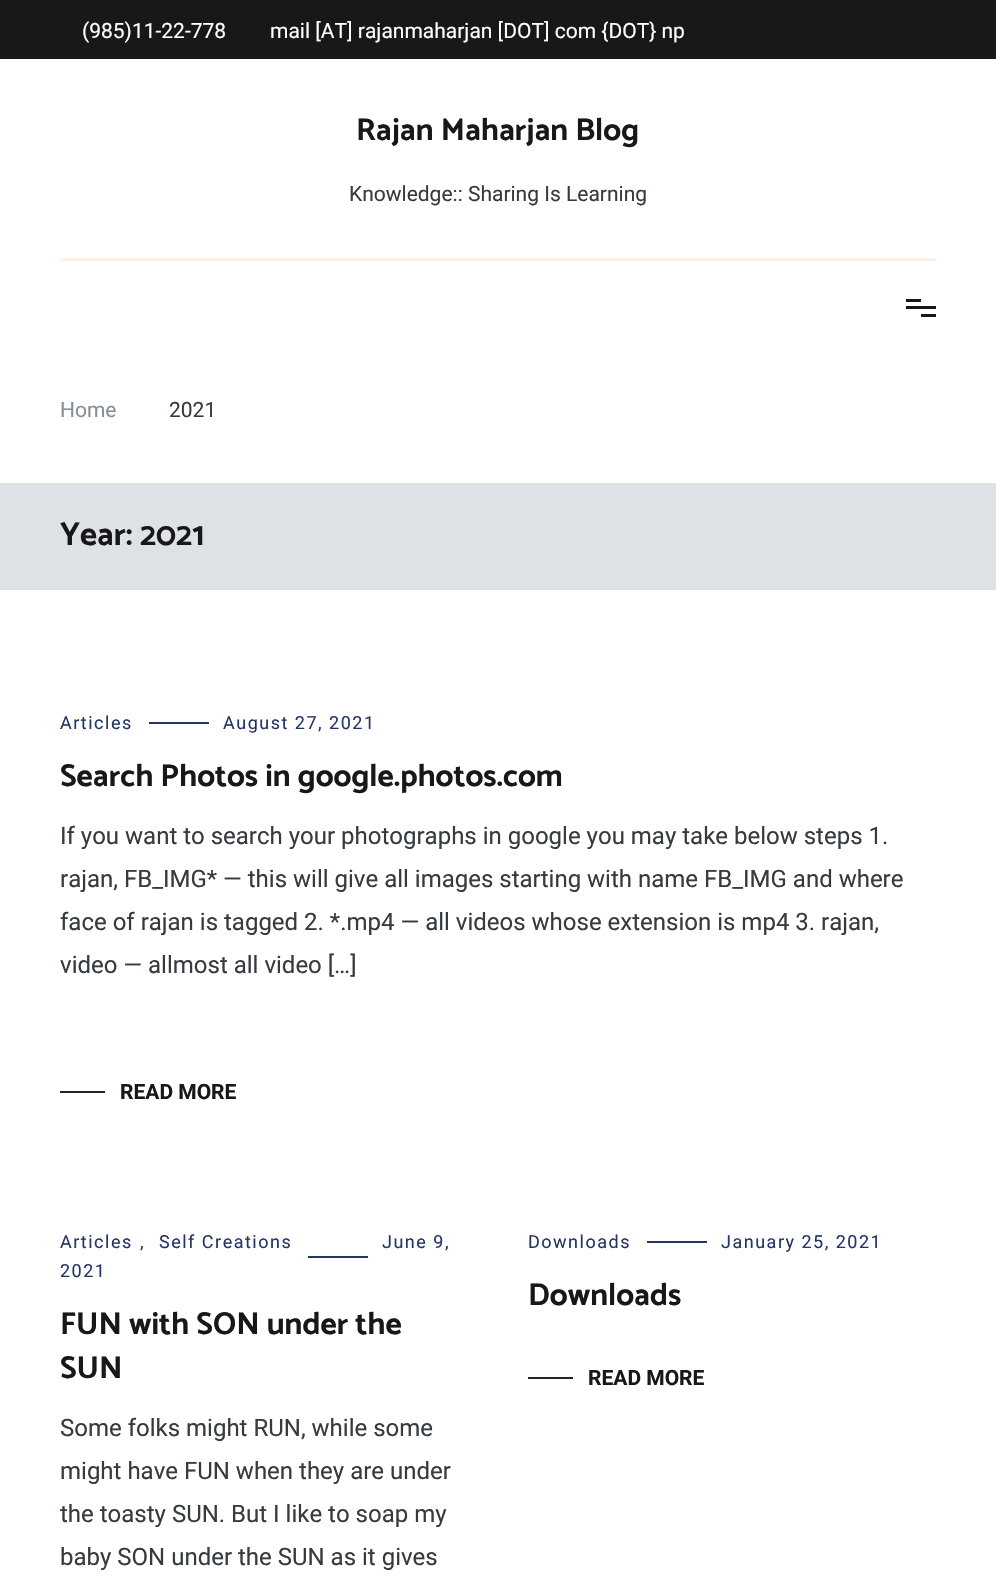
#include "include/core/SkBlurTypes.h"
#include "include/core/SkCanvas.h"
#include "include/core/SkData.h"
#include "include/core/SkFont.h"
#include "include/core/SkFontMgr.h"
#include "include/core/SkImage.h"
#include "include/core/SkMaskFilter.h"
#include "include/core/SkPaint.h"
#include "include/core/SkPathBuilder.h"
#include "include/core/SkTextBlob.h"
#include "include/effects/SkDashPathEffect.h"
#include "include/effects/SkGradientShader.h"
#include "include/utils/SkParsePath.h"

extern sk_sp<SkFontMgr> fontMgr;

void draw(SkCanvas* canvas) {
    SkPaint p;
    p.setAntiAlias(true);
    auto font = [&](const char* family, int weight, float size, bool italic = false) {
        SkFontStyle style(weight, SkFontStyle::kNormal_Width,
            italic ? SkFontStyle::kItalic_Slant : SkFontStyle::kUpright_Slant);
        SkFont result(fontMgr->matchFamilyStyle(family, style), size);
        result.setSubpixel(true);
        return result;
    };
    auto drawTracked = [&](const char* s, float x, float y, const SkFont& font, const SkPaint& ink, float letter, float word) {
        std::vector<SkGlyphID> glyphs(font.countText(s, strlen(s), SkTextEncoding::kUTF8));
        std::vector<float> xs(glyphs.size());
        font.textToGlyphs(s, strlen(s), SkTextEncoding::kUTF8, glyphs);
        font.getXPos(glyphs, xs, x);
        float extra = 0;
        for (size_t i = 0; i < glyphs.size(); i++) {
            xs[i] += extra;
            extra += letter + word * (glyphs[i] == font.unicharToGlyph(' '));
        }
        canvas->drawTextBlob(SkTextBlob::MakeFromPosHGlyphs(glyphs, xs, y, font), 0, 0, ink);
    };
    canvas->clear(0xFFFFFFFF);
    p.setColor(0xFF16181A);
    canvas->drawRect(SkRect::MakeLTRB(0, 0, 996, 59), p);
    auto font1 = font("Roboto", 400, 21);
    p.setColor(0xFFFFFFFF);
    canvas->drawString("(985)11-22-778", 82, 38, font1, p);
    canvas->drawString("mail [AT] rajanmaharjan [DOT] com {DOT} np", 270, 38, font1, p);
    auto font2 = font("Catamaran", 700, 31.5f);
    p.setColor(0xFF16181A);
    canvas->drawString("Rajan Maharjan Blog", 356, 140, font2, p);
    p.setColor(0xFF363B40);
    canvas->drawString("Knowledge:: Sharing Is Learning", 349, 201, font1, p);
    {
        const struct { float l, t, r, b; SkColor color; } items[] = {
            {60, 258, 936, 261, 0xFFFFF0E6},
            {906, 299, 921, 302, 0xFF16181A},
            {906, 306, 936, 309, 0xFF16181A},
            {921, 314, 936, 317, 0xFF16181A},
        };
        for (auto [l, t, r, b, color] : items) {
            p.setColor(color);
            canvas->drawRect(SkRect::MakeLTRB(l, t, r, b), p);
        }
    }
    p.setColor(0xFF868E96);
    canvas->drawString("Home", 60, 417, font1, p);
    p.setColor(0xFF363B40);
    canvas->drawString("2021", 169, 417, font1, p);
    p.setColor(0xFFDEE2E6);
    canvas->drawRect(SkRect::MakeLTRB(0, 483, 996, 590), p);
    auto font3 = font("Catamaran", 700, 33);
    p.setColor(0xFF16181A);
    canvas->drawString("Year: 2021", 60, 545, font3, p);
    auto font4 = font("Roboto", 400, 18);
    p.setColor(0xFF243665);
    drawTracked("Articles", 60, 729, font4, p, 1.5f, 0);
    canvas->drawRect(SkRect::MakeLTRB(149, 722, 209, 724), p);
    drawTracked("August 27, 2021", 223, 729, font4, p, 1.5f, 0);
    p.setColor(0xFF16181A);
    canvas->drawString("Search Photos in google.photos.com", 60, 786, font2, p);
    auto font5 = font("Roboto", 400, 24);
    p.setColor(0xFF363B40);
    {
        const struct { const char* s; float x, y; } items[] = {
            {"If you want to search your photographs in google you may take below steps 1.", 60, 844},
            {"rajan, FB_IMG* — this will give all images starting with name FB_IMG and where", 60, 887},
            {"face of rajan is tagged 2. *.mp4 — all videos whose extension is mp4 3. rajan,", 60, 930},
            {"video — allmost all video […]", 60, 973},
        };
        for (auto [s, x, y] : items) {
            canvas->drawString(s, x, y, font5, p);
        }
    }
    p.setColor(0xFF212529);
    canvas->drawRect(SkRect::MakeLTRB(60, 1091, 105, 1093), p);
    auto font6 = font("Roboto", 700, 21);
    p.setColor(0xFF16181A);
    canvas->drawString("READ MORE", 120, 1099, font6, p);
    p.setColor(0xFF243665);
    {
        const struct { const char* s; float x, y; } items[] = {
            {"Articles", 60, 1248},
            {"Self Creations", 159, 1248},
            {"June 9,", 382, 1248},
        };
        for (auto [s, x, y] : items) {
            drawTracked(s, x, y, font4, p, 1.5f, 0);
        }
    }
    canvas->drawRect(SkRect::MakeLTRB(308, 1256, 368, 1258), p);
    drawTracked("2021", 60, 1277, font4, p, 1.5f, 0);
    p.setColor(0xFF363B40);
    drawTracked(",", 140, 1248, font4, p, 1.5f, 0);
    p.setColor(0xFF16181A);
    canvas->drawString("FUN with SON under the", 60, 1334, font2, p);
    canvas->drawString("SUN", 60, 1378, font2, p);
    p.setColor(0xFF363B40);
    {
        const struct { const char* s; float x, y; } items[] = {
            {"Some folks might RUN, while some", 60, 1436},
            {"might have FUN when they are under", 60, 1479},
            {"the toasty SUN. But I like to soap my", 60, 1522},
            {"baby SON under the SUN as it gives", 60, 1565},
        };
        for (auto [s, x, y] : items) {
            canvas->drawString(s, x, y, font5, p);
        }
    }
    p.setColor(0xFF243665);
    drawTracked("Downloads", 528, 1248, font4, p, 1.5f, 0);
    canvas->drawRect(SkRect::MakeLTRB(647, 1241, 707, 1243), p);
    drawTracked("January 25, 2021", 721, 1248, font4, p, 1.5f, 0);
    p.setColor(0xFF16181A);
    canvas->drawString("Downloads", 528, 1305, font2, p);
    p.setColor(0xFF212529);
    canvas->drawRect(SkRect::MakeLTRB(528, 1377, 573, 1379), p);
    p.setColor(0xFF16181A);
    canvas->drawString("READ MORE", 588, 1385, font6, p);
}
